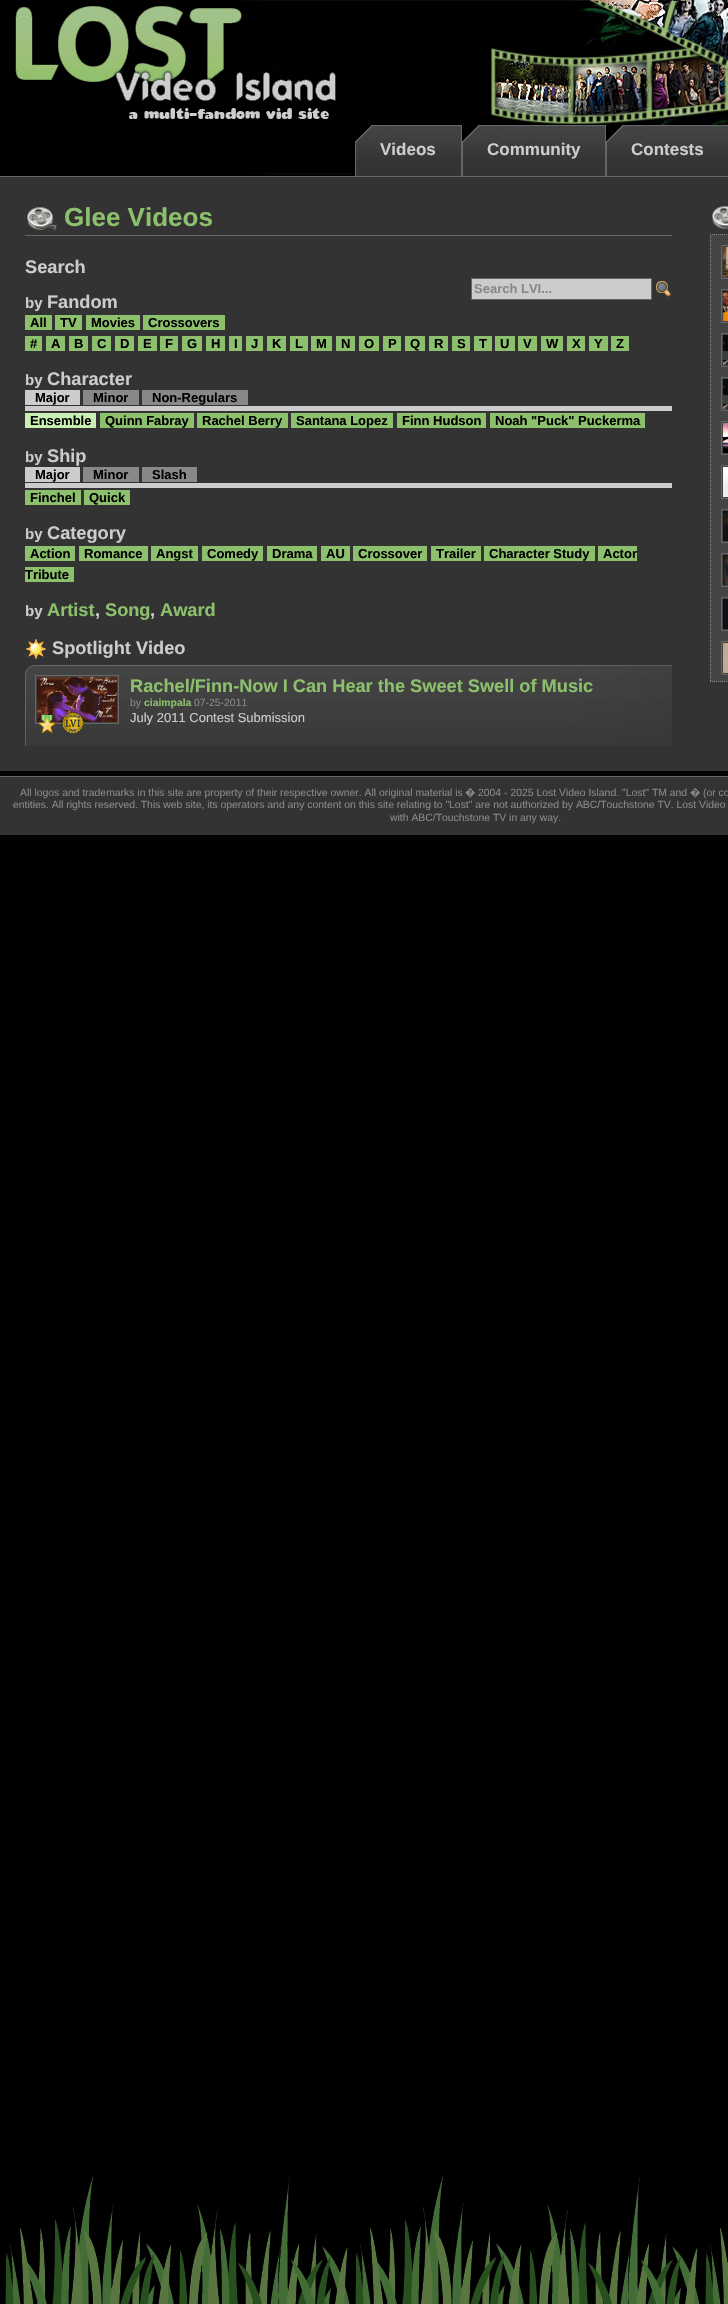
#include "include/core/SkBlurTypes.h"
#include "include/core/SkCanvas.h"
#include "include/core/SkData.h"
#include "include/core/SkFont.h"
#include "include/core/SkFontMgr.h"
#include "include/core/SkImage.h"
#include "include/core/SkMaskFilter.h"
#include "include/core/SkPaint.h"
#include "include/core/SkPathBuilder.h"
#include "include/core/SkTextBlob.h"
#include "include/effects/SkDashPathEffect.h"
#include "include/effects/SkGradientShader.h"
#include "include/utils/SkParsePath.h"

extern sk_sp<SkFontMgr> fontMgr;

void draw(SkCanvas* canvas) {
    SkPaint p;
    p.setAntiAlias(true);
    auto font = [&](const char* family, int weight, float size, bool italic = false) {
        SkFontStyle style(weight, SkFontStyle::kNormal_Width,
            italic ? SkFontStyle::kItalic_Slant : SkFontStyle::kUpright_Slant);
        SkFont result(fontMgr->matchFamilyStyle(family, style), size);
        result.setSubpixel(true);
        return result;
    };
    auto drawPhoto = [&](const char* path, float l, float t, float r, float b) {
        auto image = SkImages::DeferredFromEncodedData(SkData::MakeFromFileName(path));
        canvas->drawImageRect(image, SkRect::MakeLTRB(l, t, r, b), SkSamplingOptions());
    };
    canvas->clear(0xFF000000);
    drawPhoto("media/1.png", 5, 2175, 728, 2304);
    drawPhoto("media/2.png", 239, 0, 728, 174);
    drawPhoto("media/3.png", 15, 6, 336, 119);
    drawPhoto("media/4.png", 355, 125, 461, 176);
    p.setColor(0xFF666666);
    canvas->drawRect(SkRect::MakeLTRB(461, 125, 462, 176), p);
    auto font1 = font("Liberation Sans", 700, 17);
    p.setColor(0xFFCCCCCC);
    canvas->drawString("Videos", 380, 155, font1, p);
    drawPhoto("media/5.png", 462, 125, 605, 176);
    p.setColor(0xFF666666);
    canvas->drawRect(SkRect::MakeLTRB(605, 125, 606, 176), p);
    p.setColor(0xFFCCCCCC);
    canvas->drawString("Community", 487, 155, font1, p);
    drawPhoto("media/6.png", 606, 125, 728, 176);
    canvas->drawString("Contests", 631, 155, font1, p);
    {
        const struct { float l, t, r, b; SkColor color; } items[] = {
            {0, 177, 728, 771, 0xFF333333},
            {0, 176, 728, 177, 0xFF666666},
            {25, 235, 672, 236, 0xFF666666},
        };
        for (auto [l, t, r, b, color] : items) {
            p.setColor(color);
            canvas->drawRect(SkRect::MakeLTRB(l, t, r, b), p);
        }
    }
    drawPhoto("media/7.png", 27, 207, 57, 231);
    auto font2 = font("Liberation Sans", 700, 26);
    p.setColor(0xFF8CC06C);
    canvas->drawString("Glee Videos", 64, 226, font2, p);
    auto font3 = font("Liberation Sans", 700, 18.2f);
    p.setColor(0xFFCCCCCC);
    canvas->drawString("Search", 25, 273, font3, p);
    canvas->drawRect(SkRect::MakeLTRB(471.5f, 278.5f, 651.5f, 299.5f), p);
    p.setStyle(SkPaint::kStroke_Style);
    p.setStrokeWidth(1);
    p.setColor(0xFF666666);
    canvas->drawRect(SkRect::MakeLTRB(471.5f, 278.5f, 651.5f, 299.5f), p);
    auto font4 = font("Liberation Sans", 700, 13);
    p.setStyle(SkPaint::kFill_Style);
    p.setColor(0xFF888888);
    canvas->drawString("Search LVI...", 474, 293, font4, p);
    drawPhoto("media/8.png", 656, 281, 672, 297);
    auto font5 = font("Liberation Sans", 700, 15);
    p.setColor(0xFFCCCCCC);
    canvas->drawString("by", 25, 308, font5, p);
    canvas->drawString("Fandom", 47, 308, font3, p);
    p.setColor(0xFF8CC06C);
    canvas->drawRect(SkRect::MakeLTRB(25, 315, 52, 330), p);
    p.setColor(0xFF000000);
    canvas->drawString("All", 30, 327, font4, p);
    p.setColor(0xFF8CC06C);
    canvas->drawRect(SkRect::MakeLTRB(55, 315, 82, 330), p);
    p.setColor(0xFF000000);
    canvas->drawString("TV", 60, 327, font4, p);
    p.setColor(0xFF8CC06C);
    canvas->drawRect(SkRect::MakeLTRB(86, 315, 140, 330), p);
    p.setColor(0xFF000000);
    canvas->drawString("Movies", 91, 327, font4, p);
    p.setColor(0xFF8CC06C);
    canvas->drawRect(SkRect::MakeLTRB(143, 315, 225, 330), p);
    p.setColor(0xFF000000);
    canvas->drawString("Crossovers", 148, 327, font4, p);
    p.setColor(0xFF8CC06C);
    canvas->drawRect(SkRect::MakeLTRB(25, 336, 42, 351), p);
    p.setColor(0xFF000000);
    canvas->drawString("#", 30, 348, font4, p);
    p.setColor(0xFF8CC06C);
    canvas->drawRect(SkRect::MakeLTRB(46, 336, 65, 351), p);
    p.setColor(0xFF000000);
    canvas->drawString("A", 51, 348, font4, p);
    p.setColor(0xFF8CC06C);
    canvas->drawRect(SkRect::MakeLTRB(69, 336, 88, 351), p);
    p.setColor(0xFF000000);
    canvas->drawString("B", 74, 348, font4, p);
    p.setColor(0xFF8CC06C);
    canvas->drawRect(SkRect::MakeLTRB(92, 336, 111, 351), p);
    p.setColor(0xFF000000);
    canvas->drawString("C", 97, 348, font4, p);
    p.setColor(0xFF8CC06C);
    canvas->drawRect(SkRect::MakeLTRB(115, 336, 134, 351), p);
    p.setColor(0xFF000000);
    canvas->drawString("D", 120, 348, font4, p);
    p.setColor(0xFF8CC06C);
    canvas->drawRect(SkRect::MakeLTRB(138, 336, 157, 351), p);
    p.setColor(0xFF000000);
    canvas->drawString("E", 143, 348, font4, p);
    p.setColor(0xFF8CC06C);
    canvas->drawRect(SkRect::MakeLTRB(160, 336, 178, 351), p);
    p.setColor(0xFF000000);
    canvas->drawString("F", 165, 348, font4, p);
    p.setColor(0xFF8CC06C);
    canvas->drawRect(SkRect::MakeLTRB(182, 336, 202, 351), p);
    p.setColor(0xFF000000);
    canvas->drawString("G", 187, 348, font4, p);
    p.setColor(0xFF8CC06C);
    canvas->drawRect(SkRect::MakeLTRB(206, 336, 225, 351), p);
    p.setColor(0xFF000000);
    canvas->drawString("H", 211, 348, font4, p);
    p.setColor(0xFF8CC06C);
    canvas->drawRect(SkRect::MakeLTRB(229, 336, 242, 351), p);
    p.setColor(0xFF000000);
    canvas->drawString("I", 234, 348, font4, p);
    p.setColor(0xFF8CC06C);
    canvas->drawRect(SkRect::MakeLTRB(246, 336, 263, 351), p);
    p.setColor(0xFF000000);
    canvas->drawString("J", 251, 348, font4, p);
    p.setColor(0xFF8CC06C);
    canvas->drawRect(SkRect::MakeLTRB(267, 336, 286, 351), p);
    p.setColor(0xFF000000);
    canvas->drawString("K", 272, 348, font4, p);
    p.setColor(0xFF8CC06C);
    canvas->drawRect(SkRect::MakeLTRB(290, 336, 308, 351), p);
    p.setColor(0xFF000000);
    canvas->drawString("L", 295, 348, font4, p);
    p.setColor(0xFF8CC06C);
    canvas->drawRect(SkRect::MakeLTRB(311, 336, 332, 351), p);
    p.setColor(0xFF000000);
    canvas->drawString("M", 316, 348, font4, p);
    p.setColor(0xFF8CC06C);
    canvas->drawRect(SkRect::MakeLTRB(336, 336, 355, 351), p);
    p.setColor(0xFF000000);
    canvas->drawString("N", 341, 348, font4, p);
    p.setColor(0xFF8CC06C);
    canvas->drawRect(SkRect::MakeLTRB(359, 336, 379, 351), p);
    p.setColor(0xFF000000);
    canvas->drawString("O", 364, 348, font4, p);
    p.setColor(0xFF8CC06C);
    canvas->drawRect(SkRect::MakeLTRB(383, 336, 401, 351), p);
    p.setColor(0xFF000000);
    canvas->drawString("P", 388, 348, font4, p);
    p.setColor(0xFF8CC06C);
    canvas->drawRect(SkRect::MakeLTRB(405, 336, 425, 351), p);
    p.setColor(0xFF000000);
    canvas->drawString("Q", 410, 348, font4, p);
    p.setColor(0xFF8CC06C);
    canvas->drawRect(SkRect::MakeLTRB(429, 336, 448, 351), p);
    p.setColor(0xFF000000);
    canvas->drawString("R", 434, 348, font4, p);
    p.setColor(0xFF8CC06C);
    canvas->drawRect(SkRect::MakeLTRB(452, 336, 470, 351), p);
    p.setColor(0xFF000000);
    canvas->drawString("S", 457, 348, font4, p);
    p.setColor(0xFF8CC06C);
    canvas->drawRect(SkRect::MakeLTRB(474, 336, 492, 351), p);
    p.setColor(0xFF000000);
    canvas->drawString("T", 479, 348, font4, p);
    p.setColor(0xFF8CC06C);
    canvas->drawRect(SkRect::MakeLTRB(495, 336, 515, 351), p);
    p.setColor(0xFF000000);
    canvas->drawString("U", 500, 348, font4, p);
    p.setColor(0xFF8CC06C);
    canvas->drawRect(SkRect::MakeLTRB(518, 336, 537, 351), p);
    p.setColor(0xFF000000);
    canvas->drawString("V", 523, 348, font4, p);
    p.setColor(0xFF8CC06C);
    canvas->drawRect(SkRect::MakeLTRB(541, 336, 563, 351), p);
    p.setColor(0xFF000000);
    canvas->drawString("W", 546, 348, font4, p);
    p.setColor(0xFF8CC06C);
    canvas->drawRect(SkRect::MakeLTRB(567, 336, 585, 351), p);
    p.setColor(0xFF000000);
    canvas->drawString("X", 572, 348, font4, p);
    p.setColor(0xFF8CC06C);
    canvas->drawRect(SkRect::MakeLTRB(589, 336, 608, 351), p);
    p.setColor(0xFF000000);
    canvas->drawString("Y", 594, 348, font4, p);
    p.setColor(0xFF8CC06C);
    canvas->drawRect(SkRect::MakeLTRB(611, 336, 629, 351), p);
    p.setColor(0xFF000000);
    canvas->drawString("Z", 616, 348, font4, p);
    p.setColor(0xFFCCCCCC);
    canvas->drawString("by", 25, 385, font5, p);
    canvas->drawString("Character", 47, 385, font3, p);
    canvas->drawRect(SkRect::MakeLTRB(25, 406, 672, 411), p);
    canvas->drawRect(SkRect::MakeLTRB(25, 390, 80, 405), p);
    p.setColor(0xFF000000);
    canvas->drawString("Major", 35, 402, font4, p);
    p.setColor(0xFF888888);
    canvas->drawRect(SkRect::MakeLTRB(83, 390, 139, 405), p);
    p.setColor(0xFF000000);
    canvas->drawString("Minor", 93, 402, font4, p);
    p.setColor(0xFF888888);
    canvas->drawRect(SkRect::MakeLTRB(142, 390, 248, 405), p);
    p.setColor(0xFF000000);
    canvas->drawString("Non-Regulars", 152, 402, font4, p);
    p.setColor(0xFFCAEFB3);
    canvas->drawRect(SkRect::MakeLTRB(25, 413, 96, 428), p);
    p.setColor(0xFF000000);
    canvas->drawString("Ensemble", 30, 425, font4, p);
    p.setColor(0xFF8CC06C);
    canvas->drawRect(SkRect::MakeLTRB(100, 413, 194, 428), p);
    p.setColor(0xFF000000);
    canvas->drawString("Quinn Fabray", 105, 425, font4, p);
    p.setColor(0xFF8CC06C);
    canvas->drawRect(SkRect::MakeLTRB(197, 413, 288, 428), p);
    p.setColor(0xFF000000);
    canvas->drawString("Rachel Berry", 202, 425, font4, p);
    p.setColor(0xFF8CC06C);
    canvas->drawRect(SkRect::MakeLTRB(291, 413, 393, 428), p);
    p.setColor(0xFF000000);
    canvas->drawString("Santana Lopez", 296, 425, font4, p);
    p.setColor(0xFF8CC06C);
    canvas->drawRect(SkRect::MakeLTRB(397, 413, 486, 428), p);
    p.setColor(0xFF000000);
    canvas->drawString("Finn Hudson", 402, 425, font4, p);
    p.setColor(0xFF8CC06C);
    canvas->drawRect(SkRect::MakeLTRB(490, 413, 645, 428), p);
    p.setColor(0xFF000000);
    canvas->drawString("Noah \"Puck\" Puckerma", 495, 425, font4, p);
    p.setColor(0xFFCCCCCC);
    canvas->drawString("by", 25, 462, font5, p);
    canvas->drawString("Ship", 47, 462, font3, p);
    canvas->drawRect(SkRect::MakeLTRB(25, 483, 672, 488), p);
    canvas->drawRect(SkRect::MakeLTRB(25, 467, 80, 482), p);
    p.setColor(0xFF000000);
    canvas->drawString("Major", 35, 479, font4, p);
    p.setColor(0xFF888888);
    canvas->drawRect(SkRect::MakeLTRB(83, 467, 139, 482), p);
    p.setColor(0xFF000000);
    canvas->drawString("Minor", 93, 479, font4, p);
    p.setColor(0xFF888888);
    canvas->drawRect(SkRect::MakeLTRB(142, 467, 197, 482), p);
    p.setColor(0xFF000000);
    canvas->drawString("Slash", 152, 479, font4, p);
    p.setColor(0xFF8CC06C);
    canvas->drawRect(SkRect::MakeLTRB(25, 490, 81, 505), p);
    p.setColor(0xFF000000);
    canvas->drawString("Finchel", 30, 502, font4, p);
    p.setColor(0xFF8CC06C);
    canvas->drawRect(SkRect::MakeLTRB(84, 490, 130, 505), p);
    p.setColor(0xFF000000);
    canvas->drawString("Quick", 89, 502, font4, p);
    p.setColor(0xFFCCCCCC);
    canvas->drawString("by", 25, 539, font5, p);
    canvas->drawString("Category", 47, 539, font3, p);
    p.setColor(0xFF8CC06C);
    canvas->drawRect(SkRect::MakeLTRB(25, 546, 75, 561), p);
    p.setColor(0xFF000000);
    canvas->drawString("Action", 30, 558, font4, p);
    p.setColor(0xFF8CC06C);
    canvas->drawRect(SkRect::MakeLTRB(79, 546, 148, 561), p);
    p.setColor(0xFF000000);
    canvas->drawString("Romance", 84, 558, font4, p);
    p.setColor(0xFF8CC06C);
    canvas->drawRect(SkRect::MakeLTRB(151, 546, 198, 561), p);
    p.setColor(0xFF000000);
    canvas->drawString("Angst", 156, 558, font4, p);
    p.setColor(0xFF8CC06C);
    canvas->drawRect(SkRect::MakeLTRB(202, 546, 263, 561), p);
    p.setColor(0xFF000000);
    canvas->drawString("Comedy", 207, 558, font4, p);
    p.setColor(0xFF8CC06C);
    canvas->drawRect(SkRect::MakeLTRB(267, 546, 317, 561), p);
    p.setColor(0xFF000000);
    canvas->drawString("Drama", 272, 558, font4, p);
    p.setColor(0xFF8CC06C);
    canvas->drawRect(SkRect::MakeLTRB(321, 546, 350, 561), p);
    p.setColor(0xFF000000);
    canvas->drawString("AU", 326, 558, font4, p);
    p.setColor(0xFF8CC06C);
    canvas->drawRect(SkRect::MakeLTRB(353, 546, 427, 561), p);
    p.setColor(0xFF000000);
    canvas->drawString("Crossover", 358, 558, font4, p);
    p.setColor(0xFF8CC06C);
    canvas->drawRect(SkRect::MakeLTRB(431, 546, 481, 561), p);
    p.setColor(0xFF000000);
    canvas->drawString("Trailer", 436, 558, font4, p);
    p.setColor(0xFF8CC06C);
    canvas->drawRect(SkRect::MakeLTRB(484, 546, 595, 561), p);
    p.setColor(0xFF000000);
    canvas->drawString("Character Study", 489, 558, font4, p);
    p.setColor(0xFF8CC06C);
    canvas->drawRect(SkRect::MakeLTRB(598, 546, 637, 561), p);
    p.setColor(0xFF000000);
    canvas->drawString("Actor", 603, 558, font4, p);
    p.setColor(0xFF8CC06C);
    canvas->drawRect(SkRect::MakeLTRB(25, 567, 74, 582), p);
    p.setColor(0xFF000000);
    canvas->drawString("Tribute", 25, 579, font4, p);
    p.setColor(0xFFCCCCCC);
    canvas->drawString("by", 25, 616, font5, p);
    p.setColor(0xFF8CC06C);
    canvas->drawString("Artist", 47, 616, font3, p);
    p.setColor(0xFFCCCCCC);
    canvas->drawString(",", 95, 616, font3, p);
    p.setColor(0xFF8CC06C);
    canvas->drawString("Song", 105, 616, font3, p);
    p.setColor(0xFFCCCCCC);
    canvas->drawString(",", 150, 616, font3, p);
    p.setColor(0xFF8CC06C);
    canvas->drawString("Award", 160, 616, font3, p);
    drawPhoto("media/9.png", 26, 639, 46, 659);
    p.setColor(0xFFCCCCCC);
    canvas->drawString("Spotlight Video", 52, 654, font3, p);
    drawPhoto("media/10.png", 25, 665, 672, 746);
    p.setColor(0xFF444444);
    canvas->drawRect(SkRect::MakeLTRB(36, 689, 118, 723), p);
    p.setStyle(SkPaint::kStroke_Style);
    p.setColor(0xFF666666);
    canvas->drawRect(SkRect::MakeLTRB(35.5f, 675.5f, 118.5f, 723.5f), p);
    drawPhoto("media/11.png", 37, 677, 117, 722);
    drawPhoto("media/12.png", 39, 715, 56, 733);
    drawPhoto("media/13.png", 61, 712, 84, 734);
    p.setStyle(SkPaint::kFill_Style);
    p.setColor(0xFF8CC06C);
    canvas->drawString("Rachel/Finn-Now I Can Hear the Sweet Swell of Music", 130, 692, font3, p);
    auto font6 = font("Liberation Sans", 400, 10.4f);
    p.setColor(0xFF888888);
    canvas->drawString("by", 130, 706, font6, p);
    auto font7 = font("Liberation Sans", 700, 10.4f);
    p.setColor(0xFF8CC06C);
    canvas->drawString("ciaimpala", 144, 706, font7, p);
    p.setColor(0xFF888888);
    canvas->drawString("07-25-2011", 194, 706, font6, p);
    auto font8 = font("Liberation Sans", 400, 13);
    p.setColor(0xFFCCCCCC);
    canvas->drawString("July 2011 Contest Submission", 130, 722, font8, p);
    drawPhoto("media/14.png", 712, 206, 728, 229);
    p.setColor(0xFF444444);
    canvas->drawRect(SkRect::MakeLTRB(710, 234, 728, 682), p);
    p.setStyle(SkPaint::kStroke_Style);
    p.setColor(0xFF888888);
    p.setPathEffect(SkDashPathEffect::Make({{1, 1}}, 0));
    canvas->drawPath(SkPathBuilder().moveTo(710, 234.5f).lineTo(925, 234.5f).detach(), p);
    p.setPathEffect(nullptr);
    p.setPathEffect(SkDashPathEffect::Make({{1, 1}}, 0));
    canvas->drawPath(SkPathBuilder().moveTo(710, 681.5f).lineTo(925, 681.5f).detach(), p);
    p.setPathEffect(nullptr);
    p.setPathEffect(SkDashPathEffect::Make({{1, 1}}, 0));
    canvas->drawPath(SkPathBuilder().moveTo(710.5f, 234).lineTo(710.5f, 682).detach(), p);
    p.setPathEffect(nullptr);
    p.setColor(0xFF666666);
    canvas->drawRect(SkRect::MakeLTRB(721.5f, 245.5f, 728.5f, 278.5f), p);
    drawPhoto("media/15.png", 723, 247, 728, 277);
    canvas->drawRect(SkRect::MakeLTRB(721.5f, 289.5f, 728.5f, 322.5f), p);
    drawPhoto("media/16.png", 723, 291, 728, 321);
    canvas->drawRect(SkRect::MakeLTRB(721.5f, 333.5f, 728.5f, 366.5f), p);
    drawPhoto("media/17.png", 723, 335, 728, 365);
    canvas->drawRect(SkRect::MakeLTRB(721.5f, 377.5f, 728.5f, 410.5f), p);
    drawPhoto("media/17.png", 723, 379, 728, 409);
    canvas->drawRect(SkRect::MakeLTRB(721.5f, 421.5f, 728.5f, 454.5f), p);
    drawPhoto("media/18.png", 723, 423, 728, 453);
    canvas->drawRect(SkRect::MakeLTRB(721.5f, 465.5f, 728.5f, 498.5f), p);
    drawPhoto("media/19.png", 723, 467, 728, 497);
    canvas->drawRect(SkRect::MakeLTRB(721.5f, 509.5f, 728.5f, 542.5f), p);
    drawPhoto("media/20.png", 723, 511, 728, 541);
    canvas->drawRect(SkRect::MakeLTRB(721.5f, 553.5f, 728.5f, 586.5f), p);
    drawPhoto("media/21.png", 723, 555, 728, 585);
    canvas->drawRect(SkRect::MakeLTRB(721.5f, 597.5f, 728.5f, 630.5f), p);
    p.setStyle(SkPaint::kFill_Style);
    p.setColor(0xFF100F14);
    canvas->drawRect(SkRect::MakeLTRB(723, 599, 728, 629), p);
    p.setStyle(SkPaint::kStroke_Style);
    p.setColor(0xFF666666);
    canvas->drawRect(SkRect::MakeLTRB(721.5f, 641.5f, 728.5f, 674.5f), p);
    drawPhoto("media/22.png", 723, 643, 728, 673);
    p.setStyle(SkPaint::kFill_Style);
    p.setColor(0xFF333333);
    canvas->drawRect(SkRect::MakeLTRB(0, 777, 728, 835), p);
    p.setColor(0xFF666666);
    canvas->drawRect(SkRect::MakeLTRB(0, 776, 728, 777), p);
    p.setColor(0xFF888888);
    canvas->drawString("All logos and trademarks in this site are property of their respective owner. All original material is", 20, 796, font6, p);
    auto font9 = font("Noto Sans", 400, 10.4f);
    canvas->drawString("�", 465, 796, font9, p);
    canvas->drawString("2004 - 2025 Lost Video Island. \"Lost\" TM and", 478, 796, font6, p);
    canvas->drawString("�", 690, 796, font9, p);
    {
        const struct { const char* s; float x, y; } items[] = {
            {"(or co", 703, 796},
            {"entities. All rights reserved. This web site, its operators and any content on this site relating to \"Lost\" are not authorized by ABC/Touchstone TV. Lost Video", 13, 808},
            {"with ABC/Touchstone TV in any way.", 390, 821},
        };
        for (auto [s, x, y] : items) {
            canvas->drawString(s, x, y, font6, p);
        }
    }
}
